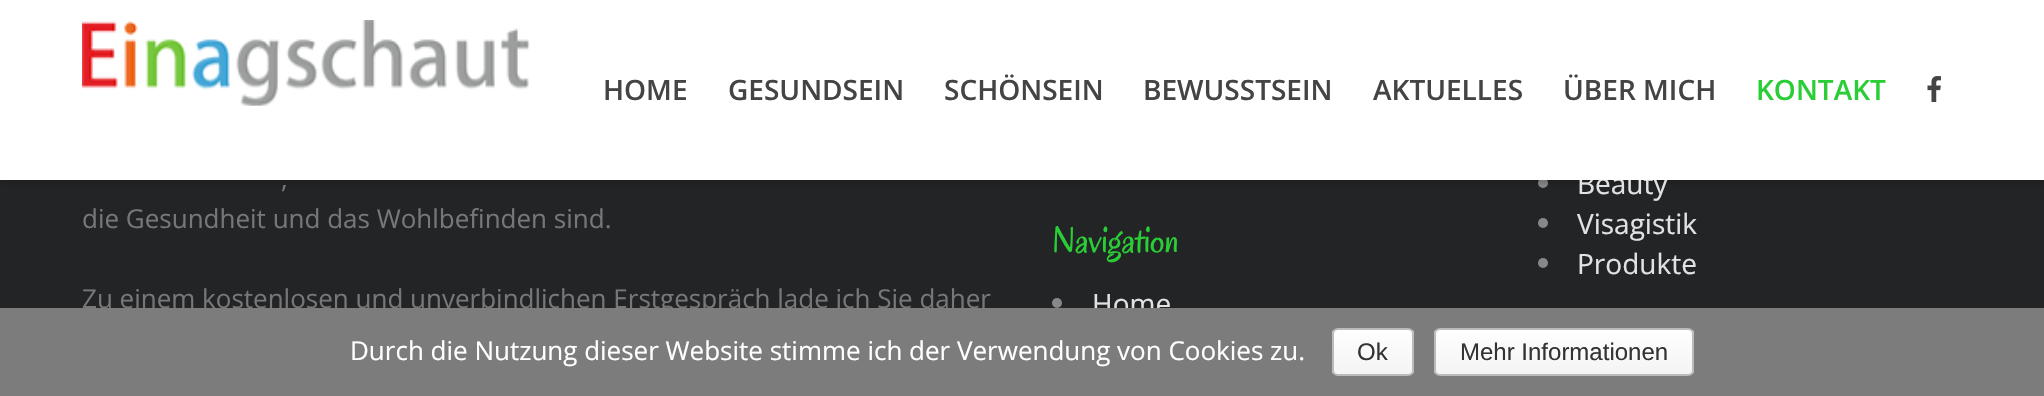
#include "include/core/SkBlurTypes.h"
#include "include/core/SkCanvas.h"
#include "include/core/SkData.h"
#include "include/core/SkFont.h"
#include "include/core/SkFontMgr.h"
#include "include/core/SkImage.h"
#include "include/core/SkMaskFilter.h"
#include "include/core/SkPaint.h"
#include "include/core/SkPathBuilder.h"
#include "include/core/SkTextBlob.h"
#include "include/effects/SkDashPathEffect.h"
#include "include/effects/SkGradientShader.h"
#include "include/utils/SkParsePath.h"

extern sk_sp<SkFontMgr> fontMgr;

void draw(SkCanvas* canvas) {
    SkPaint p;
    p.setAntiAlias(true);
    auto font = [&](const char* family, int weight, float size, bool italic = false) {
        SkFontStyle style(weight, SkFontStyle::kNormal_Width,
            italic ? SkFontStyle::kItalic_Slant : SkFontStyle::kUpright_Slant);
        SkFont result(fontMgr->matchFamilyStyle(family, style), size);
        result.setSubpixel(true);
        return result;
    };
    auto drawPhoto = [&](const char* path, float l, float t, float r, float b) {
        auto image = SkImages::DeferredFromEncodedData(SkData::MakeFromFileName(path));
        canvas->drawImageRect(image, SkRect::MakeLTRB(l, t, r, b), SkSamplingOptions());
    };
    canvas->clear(0xFF222426);
    p.setColor(0xFF888888);
    canvas->drawCircle(1543, 183, 5, p);
    p.setColor(0x21000000);
    p.setMaskFilter(SkMaskFilter::MakeBlur(kNormal_SkBlurStyle, 2));
    canvas->drawRect(SkRect::MakeLTRB(0, 4, 2044, 184), p);
    p.setMaskFilter(nullptr);
    auto font1 = font("Open Sans", 400, 28);
    p.setColor(0xFFE1E2E4);
    canvas->drawString("Beauty", 1577, 194, font1, p);
    p.setColor(0xFFFFFFFF);
    canvas->drawRect(SkRect::MakeLTRB(0, 0, 2044, 180), p);
    drawPhoto("media/1.png", 82, 20, 530, 106);
    auto font2 = font("Open Sans", 600, 28);
    p.setColor(0xFF444444);
    {
        const struct { const char* s; float x, y; } items[] = {
            {"HOME", 603, 100},
            {"GESUNDSEIN", 728, 100},
            {"SCHÖNSEIN", 944, 100},
            {"BEWUSSTSEIN", 1143, 100},
            {"AKTUELLES", 1373, 100},
            {"ÜBER MICH", 1563, 100},
        };
        for (auto [s, x, y] : items) {
            canvas->drawString(s, x, y, font2, p);
        }
    }
    p.setColor(0xFF2ACD35);
    canvas->drawString("KONTAKT", 1756, 100, font2, p);
    drawPhoto("media/2.png", 1927, 76, 1941, 102);
    auto font3 = font("Open Sans", 400, 26);
    p.setColor(0xFF777777);
    {
        const struct { const char* s; float x, y; } items[] = {
            {",", 281, 188},
            {"die Gesundheit und das Wohlbefinden sind.", 82, 228},
            {"Zu einem kostenlosen und unverbindlichen Erstgespräch lade ich Sie daher", 82, 308},
        };
        for (auto [s, x, y] : items) {
            canvas->drawString(s, x, y, font3, p);
        }
    }
    auto font4 = font("Oregano", 400, 36);
    p.setColor(0xFF2ACD35);
    canvas->drawString("Navigation", 1052, 252, font4, p);
    p.setColor(0xFF888888);
    canvas->drawCircle(1057, 303, 5, p);
    p.setColor(0xFFE1E2E4);
    canvas->drawString("Home", 1092, 314, font1, p);
    p.setColor(0xFF888888);
    canvas->drawCircle(1543, 223, 5, p);
    p.setColor(0xFFE1E2E4);
    canvas->drawString("Visagistik", 1577, 234, font1, p);
    p.setColor(0xFF888888);
    canvas->drawCircle(1543, 263, 5, p);
    p.setColor(0xFFE1E2E4);
    canvas->drawString("Produkte", 1577, 274, font1, p);
    p.setColor(0xFF7C7C7C);
    canvas->drawRect(SkRect::MakeLTRB(0, 308, 2044, 396), p);
    p.setColor(0xFFFFFFFF);
    canvas->drawString("Durch die Nutzung dieser Website stimme ich der Verwendung von Cookies zu.", 350, 360, font3, p);
    canvas->save();
    canvas->clipPath(SkPathBuilder().moveTo(1338, 328).lineTo(1408, 328).cubicTo(1411.5f, 328, 1414, 330.5f, 1414, 334).lineTo(1414, 370).cubicTo(1414, 373.5f, 1411.5f, 376, 1408, 376).lineTo(1338, 376).cubicTo(1334.5f, 376, 1332, 373.5f, 1332, 370).lineTo(1332, 334).cubicTo(1332, 330.5f, 1334.5f, 328, 1338, 328).close().detach(), true);
    {
        const SkColor colors[] = {0xFFFEFEFE, 0xFFF4F4F4};
        const float stops[] = {0, 1};
        const SkPoint ends[] = {{1373, 330}, {1373, 374}};
        p.setShader(SkGradientShader::MakeLinear(ends, colors, stops, 2, SkTileMode::kClamp));
        p.setAlpha(255);
    }
    canvas->drawRect(SkRect::MakeLTRB(1332, 330, 1414, 374), p);
    canvas->restore();
    p.setStyle(SkPaint::kStroke_Style);
    p.setStrokeWidth(2);
    p.setShader(nullptr);
    p.setColor(0xFFBBBBBB);
    canvas->drawRoundRect(SkRect::MakeLTRB(1333, 329, 1413, 375), 5, 5, p);
    auto font5 = font("Liberation Sans", 400, 24);
    p.setStyle(SkPaint::kFill_Style);
    p.setColor(0xFF333333);
    canvas->drawString("Ok", 1357, 360, font5, p);
    canvas->save();
    canvas->clipPath(SkPathBuilder().moveTo(1440, 328).lineTo(1688, 328).cubicTo(1691.5f, 328, 1694, 330.5f, 1694, 334).lineTo(1694, 370).cubicTo(1694, 373.5f, 1691.5f, 376, 1688, 376).lineTo(1440, 376).cubicTo(1436.5f, 376, 1434, 373.5f, 1434, 370).lineTo(1434, 334).cubicTo(1434, 330.5f, 1436.5f, 328, 1440, 328).close().detach(), true);
    {
        const SkColor colors[] = {0xFFFEFEFE, 0xFFF4F4F4};
        const float stops[] = {0, 1};
        const SkPoint ends[] = {{1564, 330}, {1564, 374}};
        p.setShader(SkGradientShader::MakeLinear(ends, colors, stops, 2, SkTileMode::kClamp));
        p.setAlpha(255);
    }
    canvas->drawRect(SkRect::MakeLTRB(1434, 330, 1694, 374), p);
    canvas->restore();
    p.setStyle(SkPaint::kStroke_Style);
    p.setShader(nullptr);
    p.setColor(0xFFBBBBBB);
    canvas->drawRoundRect(SkRect::MakeLTRB(1435, 329, 1693, 375), 5, 5, p);
    p.setStyle(SkPaint::kFill_Style);
    p.setColor(0xFF333333);
    canvas->drawString("Mehr Informationen", 1460, 360, font5, p);
}
